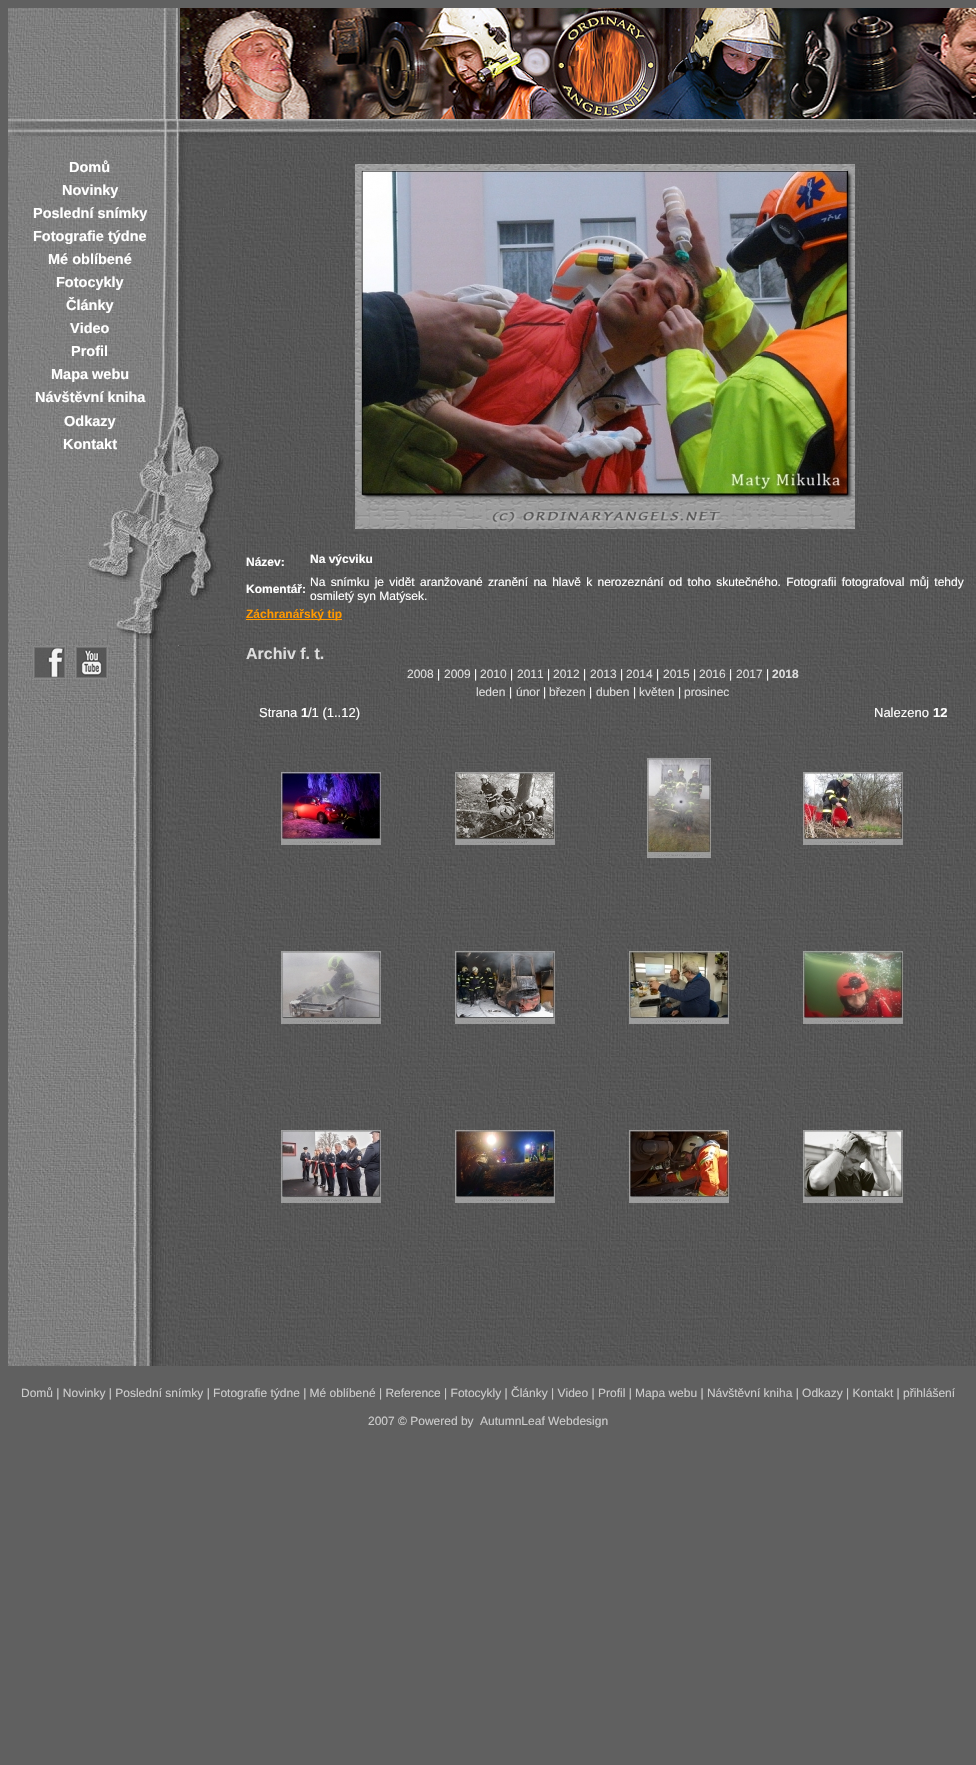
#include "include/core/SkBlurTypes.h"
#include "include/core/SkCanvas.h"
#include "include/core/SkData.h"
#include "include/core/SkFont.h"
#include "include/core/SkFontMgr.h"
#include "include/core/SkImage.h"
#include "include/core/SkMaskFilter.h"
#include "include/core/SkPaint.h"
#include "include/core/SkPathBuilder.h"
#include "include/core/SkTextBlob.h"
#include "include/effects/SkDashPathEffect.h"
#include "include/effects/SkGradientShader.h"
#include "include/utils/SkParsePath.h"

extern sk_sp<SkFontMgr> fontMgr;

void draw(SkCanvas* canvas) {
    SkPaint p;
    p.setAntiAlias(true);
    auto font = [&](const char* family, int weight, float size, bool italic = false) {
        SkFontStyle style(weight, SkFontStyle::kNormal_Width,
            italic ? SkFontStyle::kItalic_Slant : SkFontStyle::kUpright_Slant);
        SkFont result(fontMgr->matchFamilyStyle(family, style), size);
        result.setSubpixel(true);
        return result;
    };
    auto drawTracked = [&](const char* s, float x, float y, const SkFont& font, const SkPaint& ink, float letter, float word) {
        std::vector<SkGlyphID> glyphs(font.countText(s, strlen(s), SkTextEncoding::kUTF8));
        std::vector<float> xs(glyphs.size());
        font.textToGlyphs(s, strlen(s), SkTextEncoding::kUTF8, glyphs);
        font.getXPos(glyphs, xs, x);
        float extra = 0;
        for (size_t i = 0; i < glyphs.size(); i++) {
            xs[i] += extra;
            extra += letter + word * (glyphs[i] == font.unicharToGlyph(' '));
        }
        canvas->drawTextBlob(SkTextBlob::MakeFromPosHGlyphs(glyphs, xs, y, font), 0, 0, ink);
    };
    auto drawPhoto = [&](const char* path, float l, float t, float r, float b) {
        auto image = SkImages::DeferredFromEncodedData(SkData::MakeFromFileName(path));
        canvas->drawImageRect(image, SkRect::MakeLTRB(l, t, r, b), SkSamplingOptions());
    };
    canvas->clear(0xFF606060);
    drawPhoto("media/1.png", 8, 8, 178, 119);
    drawPhoto("media/2.png", 179, 8, 976, 119);
    drawPhoto("media/3.png", 8, 639, 178, 1366);
    drawPhoto("media/4.png", 8, 119, 976, 136);
    drawPhoto("media/5.png", 8, 136, 178, 639);
    auto font1 = font("Liberation Sans", 700, 14.5f);
    p.setColor(0xFFFFFFFF);
    {
        const struct { const char* s; float x, y; } items[] = {
            {"Domů", 69, 172},
            {"Novinky", 62, 195},
            {"Poslední snímky", 33, 218},
            {"Fotografie týdne", 33, 241},
            {"Mé oblíbené", 48, 264},
            {"Fotocykly", 56, 287},
            {"Články", 66, 310},
            {"Video", 70, 333},
            {"Profil", 71, 356},
            {"Mapa webu", 51, 379},
            {"Návštěvní kniha", 35, 402},
            {"Odkazy", 64, 426},
            {"Kontakt", 63, 449},
        };
        for (auto [s, x, y] : items) {
            canvas->drawString(s, x, y, font1, p);
        }
    }
    p.setStyle(SkPaint::kStroke_Style);
    p.setStrokeWidth(1);
    p.setColor(0xE6888888);
    canvas->drawRect(SkRect::MakeLTRB(33.5f, 646.5f, 65.5f, 678.5f), p);
    canvas->drawRect(SkRect::MakeLTRB(75.5f, 646.5f, 107.5f, 678.5f), p);
    drawPhoto("media/6.png", 34, 647, 65, 678);
    drawPhoto("media/7.png", 76, 647, 107, 678);
    drawPhoto("media/8.png", 178, 136, 976, 1366);
    drawPhoto("media/9.png", 178, 136, 228, 646);
    drawPhoto("media/10.png", 243, 161, 976, 1266);
    drawPhoto("media/11.png", 355, 164, 855, 529);
    auto font2 = font("Liberation Sans", 700, 12);
    p.setStyle(SkPaint::kFill_Style);
    p.setColor(0xFFFFFFFF);
    {
        const struct { const char* s; float x, y; } items[] = {
            {"Název:", 246, 566},
            {"Na výcviku", 310, 563},
            {"Komentář:", 246, 593},
        };
        for (auto [s, x, y] : items) {
            canvas->drawString(s, x, y, font2, p);
        }
    }
    auto font3 = font("Liberation Sans", 400, 12);
    drawTracked("Na snímku je vidět aranžované zranění na hlavě k nerozeznání od toho skutečného. Fotografii fotografoval můj tehdy", 310, 586, font3, p, 0, 2);
    canvas->drawString("osmiletý syn Matýsek.", 310, 600, font3, p);
    p.setColor(0xFFFF9900);
    canvas->drawRect(SkRect::MakeLTRB(246, 619, 342, 620), p);
    canvas->drawString("Záchranářský tip", 246, 618, font2, p);
    auto font4 = font("Liberation Sans", 700, 16);
    p.setColor(0xFFDDDDDD);
    canvas->drawString("Archiv f. t.", 246, 659, font4, p);
    canvas->drawString("2008", 407, 678, font3, p);
    p.setColor(0xFFFFFFFF);
    canvas->drawString("|", 437, 678, font3, p);
    p.setColor(0xFFDDDDDD);
    canvas->drawString("2009", 444, 678, font3, p);
    p.setColor(0xFFFFFFFF);
    canvas->drawString("|", 474, 678, font3, p);
    p.setColor(0xFFDDDDDD);
    canvas->drawString("2010", 480, 678, font3, p);
    p.setColor(0xFFFFFFFF);
    canvas->drawString("|", 510, 678, font3, p);
    p.setColor(0xFFDDDDDD);
    canvas->drawString("2011", 517, 678, font3, p);
    p.setColor(0xFFFFFFFF);
    canvas->drawString("|", 547, 678, font3, p);
    p.setColor(0xFFDDDDDD);
    canvas->drawString("2012", 553, 678, font3, p);
    p.setColor(0xFFFFFFFF);
    canvas->drawString("|", 583, 678, font3, p);
    p.setColor(0xFFDDDDDD);
    canvas->drawString("2013", 590, 678, font3, p);
    p.setColor(0xFFFFFFFF);
    canvas->drawString("|", 620, 678, font3, p);
    p.setColor(0xFFDDDDDD);
    canvas->drawString("2014", 626, 678, font3, p);
    p.setColor(0xFFFFFFFF);
    canvas->drawString("|", 656, 678, font3, p);
    p.setColor(0xFFDDDDDD);
    canvas->drawString("2015", 663, 678, font3, p);
    p.setColor(0xFFFFFFFF);
    canvas->drawString("|", 693, 678, font3, p);
    p.setColor(0xFFDDDDDD);
    canvas->drawString("2016", 699, 678, font3, p);
    p.setColor(0xFFFFFFFF);
    canvas->drawString("|", 729, 678, font3, p);
    p.setColor(0xFFDDDDDD);
    canvas->drawString("2017", 736, 678, font3, p);
    p.setColor(0xFFFFFFFF);
    canvas->drawString("|", 766, 678, font3, p);
    p.setColor(0xFFDDDDDD);
    canvas->drawString("2018", 772, 678, font2, p);
    canvas->drawString("leden", 476, 696, font3, p);
    p.setColor(0xFFFFFFFF);
    canvas->drawString("|", 509, 696, font3, p);
    p.setColor(0xFFDDDDDD);
    canvas->drawString("únor", 516, 696, font3, p);
    p.setColor(0xFFFFFFFF);
    canvas->drawString("|", 543, 696, font3, p);
    p.setColor(0xFFDDDDDD);
    canvas->drawString("březen", 549, 696, font3, p);
    p.setColor(0xFFFFFFFF);
    canvas->drawString("|", 589, 696, font3, p);
    p.setColor(0xFFDDDDDD);
    canvas->drawString("duben", 596, 696, font3, p);
    p.setColor(0xFFFFFFFF);
    canvas->drawString("|", 633, 696, font3, p);
    p.setColor(0xFFDDDDDD);
    canvas->drawString("květen", 639, 696, font3, p);
    p.setColor(0xFFFFFFFF);
    canvas->drawString("|", 678, 696, font3, p);
    p.setColor(0xFFDDDDDD);
    canvas->drawString("prosinec", 684, 696, font3, p);
    auto font5 = font("Liberation Sans", 400, 13);
    p.setColor(0xFFFFFFFF);
    canvas->drawString("Strana", 259, 717, font5, p);
    auto font6 = font("Liberation Sans", 700, 13);
    canvas->drawString("1", 301, 717, font6, p);
    canvas->drawString("/1 (1..12)", 308, 717, font5, p);
    canvas->drawString("Nalezeno", 874, 717, font5, p);
    canvas->drawString("12", 933, 717, font6, p);
    drawPhoto("media/12.png", 281, 772, 381, 845);
    drawPhoto("media/13.png", 455, 772, 555, 845);
    drawPhoto("media/14.png", 647, 758, 711, 858);
    drawPhoto("media/15.png", 803, 772, 903, 845);
    drawPhoto("media/16.png", 281, 951, 381, 1024);
    drawPhoto("media/17.png", 455, 951, 555, 1024);
    drawPhoto("media/18.png", 629, 951, 729, 1024);
    drawPhoto("media/19.png", 803, 951, 903, 1024);
    drawPhoto("media/20.png", 281, 1130, 381, 1203);
    drawPhoto("media/21.png", 455, 1130, 555, 1203);
    drawPhoto("media/22.png", 629, 1130, 729, 1203);
    drawPhoto("media/23.png", 803, 1130, 903, 1203);
    p.setColor(0xFFCCCCCC);
    {
        const struct { const char* s; float x, y; } items[] = {
            {"Domů | Novinky | Poslední snímky | Fotografie týdne | Mé oblíbené | Reference | Fotocykly | Články | Video | Profil | Mapa webu | Návštěvní kniha | Odkazy | Kontakt | přihlášení", 21, 1397},
            {"2007 © Powered by", 368, 1425},
            {"AutumnLeaf Webdesign", 480, 1425},
        };
        for (auto [s, x, y] : items) {
            canvas->drawString(s, x, y, font3, p);
        }
    }
}
